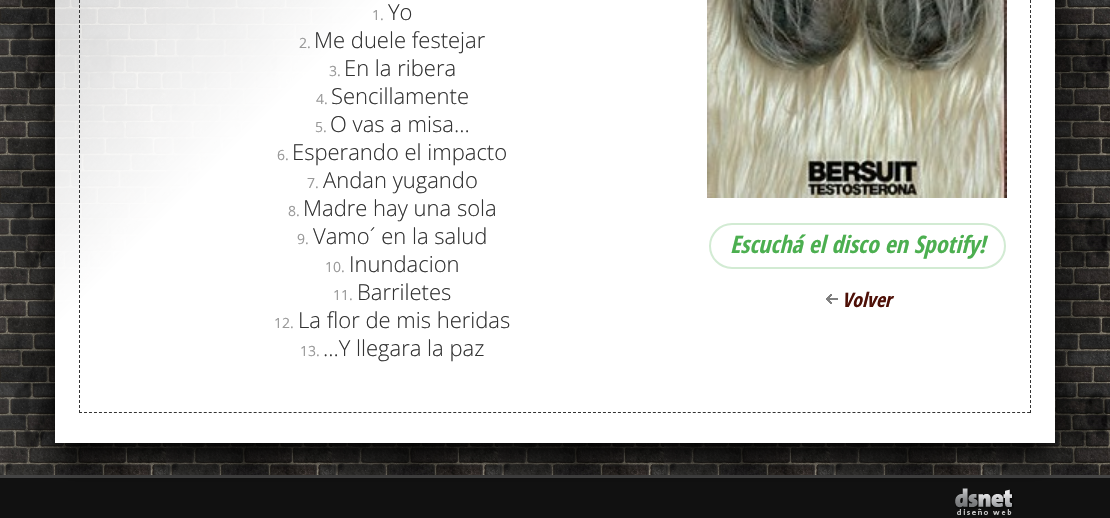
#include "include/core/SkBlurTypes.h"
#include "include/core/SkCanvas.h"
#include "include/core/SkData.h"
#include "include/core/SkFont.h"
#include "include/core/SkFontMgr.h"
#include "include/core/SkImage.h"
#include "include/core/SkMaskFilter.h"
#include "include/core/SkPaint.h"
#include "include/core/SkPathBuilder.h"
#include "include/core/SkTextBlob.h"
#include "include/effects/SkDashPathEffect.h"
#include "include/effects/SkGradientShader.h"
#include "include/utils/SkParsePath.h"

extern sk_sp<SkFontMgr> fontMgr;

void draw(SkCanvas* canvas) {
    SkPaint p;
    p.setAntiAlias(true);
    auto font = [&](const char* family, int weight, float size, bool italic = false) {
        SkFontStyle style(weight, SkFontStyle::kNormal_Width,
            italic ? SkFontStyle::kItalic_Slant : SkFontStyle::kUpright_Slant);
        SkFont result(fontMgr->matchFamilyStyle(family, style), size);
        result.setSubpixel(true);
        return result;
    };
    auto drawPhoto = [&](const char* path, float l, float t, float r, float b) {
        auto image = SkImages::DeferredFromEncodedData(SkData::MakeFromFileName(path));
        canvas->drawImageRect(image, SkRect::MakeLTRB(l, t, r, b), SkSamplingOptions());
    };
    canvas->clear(0xFFFFFFFF);
    drawPhoto("media/1.png", 0, 0, 1110, 475);
    p.setColor(0xFF111111);
    canvas->drawRect(SkRect::MakeLTRB(0, 478, 1110, 518), p);
    p.setColor(0xFF444444);
    canvas->drawRect(SkRect::MakeLTRB(0, 475, 1110, 478), p);
    drawPhoto("media/4.png", 955, 488, 1014, 515);
    canvas->save();
    canvas->clipPath(SkPathBuilder(SkPathFillType::kEvenOdd).moveTo(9, 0).lineTo(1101, 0).lineTo(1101, 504).lineTo(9, 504).close().moveTo(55, -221).lineTo(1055, -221).lineTo(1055, 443).lineTo(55, 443).close().detach(), true);
    p.setColor(0xFF000000);
    p.setMaskFilter(SkMaskFilter::MakeBlur(kNormal_SkBlurStyle, 15));
    canvas->drawRect(SkRect::MakeLTRB(55, -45, 1055, 458), p);
    p.setMaskFilter(nullptr);
    canvas->restore();
    p.setStyle(SkPaint::kStroke_Style);
    p.setStrokeWidth(1);
    p.setColor(0xFF333333);
    p.setPathEffect(SkDashPathEffect::Make({{3, 2}}, 0));
    canvas->drawPath(SkPathBuilder().moveTo(1030.5f, -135).lineTo(1030.5f, 413).detach(), p);
    p.setPathEffect(nullptr);
    p.setPathEffect(SkDashPathEffect::Make({{3, 1.99f}}, 0));
    canvas->drawPath(SkPathBuilder().moveTo(79, 412.5f).lineTo(1031, 412.5f).detach(), p);
    p.setPathEffect(nullptr);
    p.setPathEffect(SkDashPathEffect::Make({{3, 2}}, 0));
    canvas->drawPath(SkPathBuilder().moveTo(79.5f, -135).lineTo(79.5f, 413).detach(), p);
    p.setPathEffect(nullptr);
    auto font1 = font("Open Sans", 400, 14);
    p.setStyle(SkPaint::kFill_Style);
    p.setColor(0xFF999999);
    canvas->drawString("1.", 372, 20, font1, p);
    auto font2 = font("Open Sans", 300, 22);
    p.setColor(0xFF333333);
    canvas->drawString("Yo", 388, 20, font2, p);
    p.setColor(0xFF999999);
    canvas->drawString("2.", 299, 48, font1, p);
    p.setColor(0xFF333333);
    canvas->drawString("Me duele festejar", 314, 48, font2, p);
    p.setColor(0xFF999999);
    canvas->drawString("3.", 329, 76, font1, p);
    p.setColor(0xFF333333);
    canvas->drawString("En la ribera", 344, 76, font2, p);
    p.setColor(0xFF999999);
    canvas->drawString("4.", 316, 104, font1, p);
    p.setColor(0xFF333333);
    canvas->drawString("Sencillamente", 331, 104, font2, p);
    p.setColor(0xFF999999);
    canvas->drawString("5.", 315, 132, font1, p);
    p.setColor(0xFF333333);
    canvas->drawString("O vas a misa...", 330, 132, font2, p);
    p.setColor(0xFF999999);
    canvas->drawString("6.", 277, 160, font1, p);
    p.setColor(0xFF333333);
    canvas->drawString("Esperando el impacto", 292, 160, font2, p);
    p.setColor(0xFF999999);
    canvas->drawString("7.", 307, 188, font1, p);
    p.setColor(0xFF333333);
    canvas->drawString("Andan yugando", 323, 188, font2, p);
    p.setColor(0xFF999999);
    canvas->drawString("8.", 288, 216, font1, p);
    p.setColor(0xFF333333);
    canvas->drawString("Madre hay una sola", 303, 216, font2, p);
    p.setColor(0xFF999999);
    canvas->drawString("9.", 297, 244, font1, p);
    p.setColor(0xFF333333);
    canvas->drawString("Vamo´ en la salud", 313, 244, font2, p);
    p.setColor(0xFF999999);
    canvas->drawString("10.", 325, 272, font1, p);
    p.setColor(0xFF333333);
    canvas->drawString("Inundacion", 349, 272, font2, p);
    p.setColor(0xFF999999);
    canvas->drawString("11.", 333, 300, font1, p);
    p.setColor(0xFF333333);
    canvas->drawString("Barriletes", 357, 300, font2, p);
    p.setColor(0xFF999999);
    canvas->drawString("12.", 274, 328, font1, p);
    p.setColor(0xFF333333);
    canvas->drawString("La flor de mis heridas", 298, 328, font2, p);
    p.setColor(0xFF999999);
    canvas->drawString("13.", 300, 356, font1, p);
    p.setColor(0xFF333333);
    canvas->drawString("...Y llegara la paz", 323, 356, font2, p);
    drawPhoto("media/2.png", 707, 0, 1007, 198);
    p.setStyle(SkPaint::kStroke_Style);
    p.setStrokeWidth(2);
    p.setColor(0xFFD2EBD3);
    canvas->drawRoundRect(SkRect::MakeLTRB(710, 224, 1005, 268), 22, 22, p);
    auto font3 = font("Open Sans Condensed", 700, 24, true);
    p.setStyle(SkPaint::kFill_Style);
    p.setColor(0xFF4CAF50);
    canvas->drawString("Escuchá el disco en Spotify!", 730, 253, font3, p);
    drawPhoto("media/3.png", 826, 294, 838, 304);
    auto font4 = font("Open Sans Condensed", 700, 20, true);
    p.setColor(0xFF4E1007);
    canvas->drawString("Volver", 842, 307, font4, p);
}
